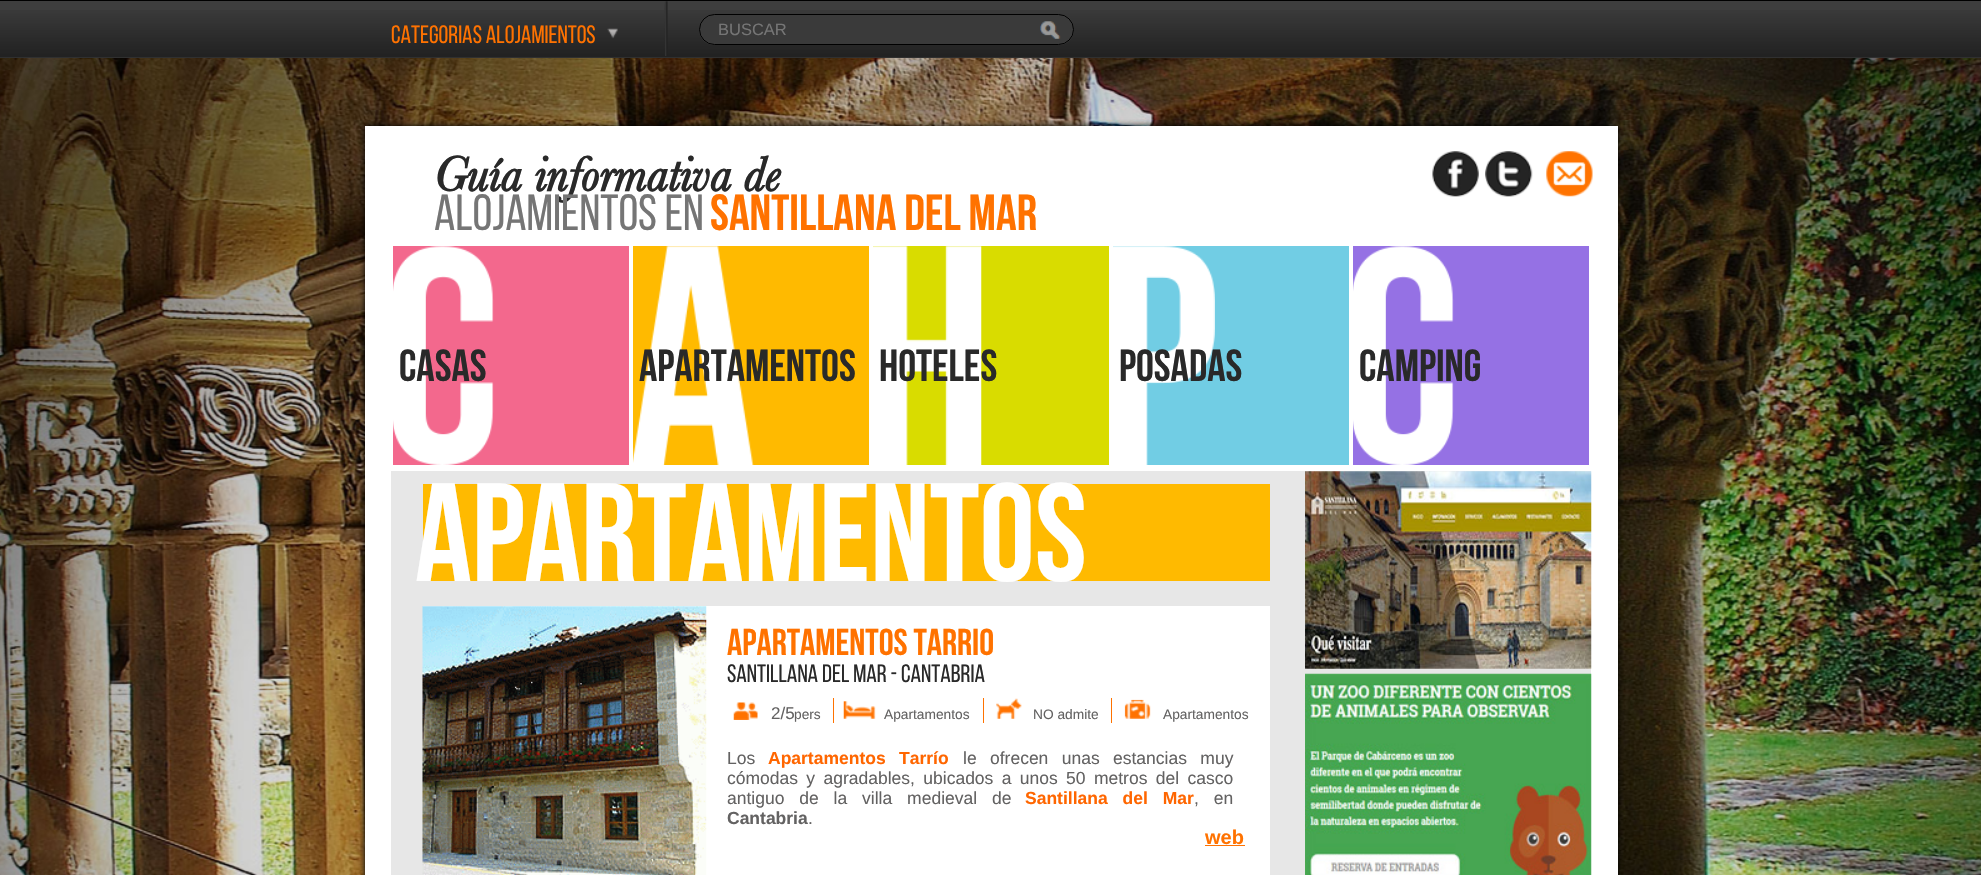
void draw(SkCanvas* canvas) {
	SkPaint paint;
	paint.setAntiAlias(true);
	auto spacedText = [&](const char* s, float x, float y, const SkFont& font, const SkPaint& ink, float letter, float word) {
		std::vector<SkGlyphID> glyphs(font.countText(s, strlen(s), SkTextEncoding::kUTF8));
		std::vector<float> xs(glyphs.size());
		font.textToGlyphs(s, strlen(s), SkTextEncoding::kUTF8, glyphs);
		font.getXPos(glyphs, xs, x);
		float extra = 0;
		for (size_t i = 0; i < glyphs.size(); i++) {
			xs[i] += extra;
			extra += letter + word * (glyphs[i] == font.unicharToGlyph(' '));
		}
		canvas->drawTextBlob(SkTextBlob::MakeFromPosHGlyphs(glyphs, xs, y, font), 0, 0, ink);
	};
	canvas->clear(0xffffffff);
	canvas->drawImageRect(SkImages::DeferredFromEncodedData(SkData::MakeFromFileName("img1.png")), SkRect::MakeXYWH(0, 58, 1981, 817), SkSamplingOptions());
	paint.setColor(0xff000000);
	canvas->drawRect(SkRect::MakeXYWH(0, 0, 1981, 1), paint);
	paint.setColor(0xff3e3e3e);
	canvas->drawRect(SkRect::MakeXYWH(0, 1, 1981, 57), paint);
	canvas->drawImageRect(SkImages::DeferredFromEncodedData(SkData::MakeFromFileName("img2.png")), SkRect::MakeXYWH(0, 10, 1981, 48), SkSamplingOptions());
	canvas->drawImageRect(SkImages::DeferredFromEncodedData(SkData::MakeFromFileName("img3.png")), SkRect::MakeXYWH(664, 1, 4, 55), SkSamplingOptions());
	SkFont f1(fontMgr->matchFamilyStyle("Bebas Neue", SkFontStyle::Normal()), 25);
	f1.setSubpixel(true);
	paint.setColor(0xffff7200);
	canvas->drawString("Categorias alojamientos", 391, 43, f1, paint);
	canvas->drawImageRect(SkImages::DeferredFromEncodedData(SkData::MakeFromFileName("img4.png")), SkRect::MakeXYWH(607, 28, 11, 11), SkSamplingOptions());
	paint.setColor(0xff3a3a3a);
	canvas->drawRoundRect(SkRect::MakeXYWH(699, 14, 375, 31), 15.5, 15.5, paint);
	canvas->drawImageRect(SkImages::DeferredFromEncodedData(SkData::MakeFromFileName("img5.png")), SkRect::MakeXYWH(1040, 21, 21, 18), SkSamplingOptions());
	paint.setStroke(true);
	paint.setStrokeWidth(1);
	paint.setColor(0xff000000);
	canvas->drawRoundRect(SkRect::MakeXYWH(699.5, 14.5, 374, 30), 15, 15, paint);
	SkFont f2(fontMgr->matchFamilyStyle("Liberation Sans", SkFontStyle::Normal()), 16.5);
	f2.setSubpixel(true);
	paint.setStroke(false);
	paint.setColor(0xff757575);
	canvas->drawString("BUSCAR", 718, 35, f2, paint);
	paint.setColor(0xff000000);
	paint.setMaskFilter(SkMaskFilter::MakeBlur(kNormal_SkBlurStyle, 3));
	canvas->drawRect(SkRect::MakeXYWH(365, 126, 1253, 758), paint);
	paint.setMaskFilter(nullptr);
	paint.setColor(0xffffffff);
	canvas->drawRect(SkRect::MakeXYWH(365, 126, 1253, 749), paint);
	SkFont f3(fontMgr->matchFamilyStyle("Baskerville", SkFontStyle::BoldItalic()), 50.75);
	f3.setSubpixel(true);
	paint.setColor(0xff292929);
	canvas->drawString("Guía informativa de", 434, 191, f3, paint);
	SkFont f4(fontMgr->matchFamilyStyle("Bebas Neue", SkFontStyle::Normal()), 50.75);
	f4.setSubpixel(true);
	paint.setColor(0xff757575);
	canvas->drawString("alojamientos en", 434, 230, f4, paint);
	SkFont f5(fontMgr->matchFamilyStyle("Bebas Neue", SkFontStyle::Bold()), 50.75);
	f5.setSubpixel(true);
	paint.setColor(0xffff7200);
	canvas->drawString("Santillana del Mar", 710, 230, f5, paint);
	canvas->drawImageRect(SkImages::DeferredFromEncodedData(SkData::MakeFromFileName("img6.png")), SkRect::MakeXYWH(1432, 151, 47, 46), SkSamplingOptions());
	canvas->drawImageRect(SkImages::DeferredFromEncodedData(SkData::MakeFromFileName("img7.png")), SkRect::MakeXYWH(1485, 151, 48, 46), SkSamplingOptions());
	canvas->drawImageRect(SkImages::DeferredFromEncodedData(SkData::MakeFromFileName("img8.png")), SkRect::MakeXYWH(1546, 151, 47, 46), SkSamplingOptions());
	paint.setColor(0xfff3688d);
	canvas->drawRect(SkRect::MakeXYWH(393, 246, 236, 219), paint);
	canvas->drawImageRect(SkImages::DeferredFromEncodedData(SkData::MakeFromFileName("img9.png")), SkRect::MakeXYWH(393, 246, 101, 219), SkSamplingOptions());
	SkFont f6(fontMgr->matchFamilyStyle("Bebas Neue", SkFontStyle::Bold()), 45);
	f6.setSubpixel(true);
	paint.setColor(0xff292929);
	canvas->drawString("casas", 399, 381, f6, paint);
	paint.setColor(0xffffba00);
	canvas->drawRect(SkRect::MakeXYWH(633, 246, 236, 219), paint);
	canvas->drawImageRect(SkImages::DeferredFromEncodedData(SkData::MakeFromFileName("img10.png")), SkRect::MakeXYWH(633, 246, 121, 219), SkSamplingOptions());
	paint.setColor(0xff292929);
	canvas->drawString("apartamentos", 639, 381, f6, paint);
	paint.setColor(0xffd9dc00);
	canvas->drawRect(SkRect::MakeXYWH(873, 246, 236, 219), paint);
	canvas->drawImageRect(SkImages::DeferredFromEncodedData(SkData::MakeFromFileName("img11.png")), SkRect::MakeXYWH(873, 246, 109, 219), SkSamplingOptions());
	paint.setColor(0xff292929);
	canvas->drawString("hoteles", 879, 381, f6, paint);
	paint.setColor(0xff71cde4);
	canvas->drawRect(SkRect::MakeXYWH(1113, 246, 236, 219), paint);
	canvas->drawImageRect(SkImages::DeferredFromEncodedData(SkData::MakeFromFileName("img12.png")), SkRect::MakeXYWH(1113, 246, 102, 219), SkSamplingOptions());
	paint.setColor(0xff292929);
	canvas->drawString("posadas", 1119, 381, f6, paint);
	paint.setColor(0xff9571e4);
	canvas->drawRect(SkRect::MakeXYWH(1353, 246, 236, 219), paint);
	canvas->drawImageRect(SkImages::DeferredFromEncodedData(SkData::MakeFromFileName("img13.png")), SkRect::MakeXYWH(1353, 246, 101, 219), SkSamplingOptions());
	paint.setColor(0xff292929);
	canvas->drawString("camping", 1359, 381, f6, paint);
	paint.setColor(0xffe7e7e7);
	canvas->drawRect(SkRect::MakeXYWH(391, 471, 1200, 404), paint);
	paint.setColor(0xffffba00);
	canvas->drawRect(SkRect::MakeXYWH(423, 484, 847, 97), paint);
	SkFont f7(fontMgr->matchFamilyStyle("Bebas Neue", SkFontStyle::Bold()), 139.5);
	f7.setSubpixel(true);
	paint.setColor(0xffffffff);
	canvas->drawString("Apartamentos", 415, 581, f7, paint);
	canvas->drawRect(SkRect::MakeXYWH(423, 606, 847, 269), paint);
	canvas->drawImageRect(SkImages::DeferredFromEncodedData(SkData::MakeFromFileName("img14.png")), SkRect::MakeXYWH(422, 606, 285, 269), SkSamplingOptions());
	SkFont f8(fontMgr->matchFamilyStyle("Bebas Neue", SkFontStyle::Bold()), 37.5);
	f8.setSubpixel(true);
	paint.setColor(0xffff7200);
	canvas->drawString("Apartamentos Tarrio", 727, 655, f8, paint);
	paint.setColor(0xff292929);
	canvas->drawString("Santillana del Mar - Cantabria", 727, 682, f1, paint);
	canvas->drawImageRect(SkImages::DeferredFromEncodedData(SkData::MakeFromFileName("img15.png")), SkRect::MakeXYWH(733, 702, 25, 18), SkSamplingOptions());
	SkFont f9(fontMgr->matchFamilyStyle("Liberation Sans", SkFontStyle::Normal()), 17);
	f9.setSubpixel(true);
	paint.setColor(0xff636262);
	canvas->drawString("2/5", 771, 719, f9, paint);
	SkFont f10(fontMgr->matchFamilyStyle("Liberation Sans", SkFontStyle::Normal()), 13.75);
	f10.setSubpixel(true);
	canvas->drawString("pers", 794, 719, f10, paint);
	paint.setColor(0xffff7200);
	canvas->drawRect(SkRect::MakeXYWH(833, 698, 1, 25), paint);
	canvas->drawImageRect(SkImages::DeferredFromEncodedData(SkData::MakeFromFileName("img16.png")), SkRect::MakeXYWH(843, 701, 33, 18), SkSamplingOptions());
	paint.setColor(0xff636262);
	canvas->drawString("Apartamentos", 884, 719, f10, paint);
	paint.setColor(0xffff7200);
	canvas->drawRect(SkRect::MakeXYWH(983, 698, 1, 25), paint);
	canvas->drawImageRect(SkImages::DeferredFromEncodedData(SkData::MakeFromFileName("img17.png")), SkRect::MakeXYWH(996, 698, 26, 21), SkSamplingOptions());
	paint.setColor(0xff636262);
	canvas->drawString("NO admite", 1033, 719, f10, paint);
	paint.setColor(0xffff7200);
	canvas->drawRect(SkRect::MakeXYWH(1111, 698, 1, 25), paint);
	canvas->drawImageRect(SkImages::DeferredFromEncodedData(SkData::MakeFromFileName("img18.png")), SkRect::MakeXYWH(1124, 699, 27, 20), SkSamplingOptions());
	paint.setColor(0xff636262);
	canvas->drawString("Apartamentos", 1163, 719, f10, paint);
	SkFont f11(fontMgr->matchFamilyStyle("Liberation Sans", SkFontStyle::Normal()), 17.5);
	f11.setSubpixel(true);
	canvas->drawString("Los", 727, 764, f11, paint);
	SkFont f12(fontMgr->matchFamilyStyle("Liberation Sans", SkFontStyle::Bold()), 17.5);
	f12.setSubpixel(true);
	paint.setColor(0xffff6600);
	spacedText("Apartamentos Tarrío", 768, 764, f12, paint, 0, 8.5);
	paint.setColor(0xff636262);
	spacedText("le ofrecen unas estancias muy", 963, 764, f11, paint, 0, 8.5);
	spacedText("cómodas y agradables, ubicados a unos 50 metros del casco", 727, 784, f11, paint, 0, 3.5);
	spacedText("antiguo de la villa medieval de", 727, 804, f11, paint, 0, 10);
	paint.setColor(0xffff6600);
	spacedText("Santillana del Mar", 1025, 804, f12, paint, 0, 10);
	paint.setColor(0xff636262);
	spacedText(", en", 1194, 804, f11, paint, 0, 10);
	canvas->drawString("Cantabria", 727, 824, f12, paint);
	canvas->drawString(".", 808, 824, f11, paint);
	SkFont f13(fontMgr->matchFamilyStyle("Liberation Sans", SkFontStyle::Bold()), 20);
	f13.setSubpixel(true);
	paint.setColor(0xffff7200);
	canvas->drawString("web", 1205, 844, f13, paint);
	canvas->drawRect(SkRect::MakeXYWH(1205, 845, 40, 1), paint);
	canvas->drawImageRect(SkImages::DeferredFromEncodedData(SkData::MakeFromFileName("img19.png")), SkRect::MakeXYWH(1305, 471, 287, 198), SkSamplingOptions());
	canvas->drawImageRect(SkImages::DeferredFromEncodedData(SkData::MakeFromFileName("img20.png")), SkRect::MakeXYWH(1305, 673, 287, 202), SkSamplingOptions());
}
